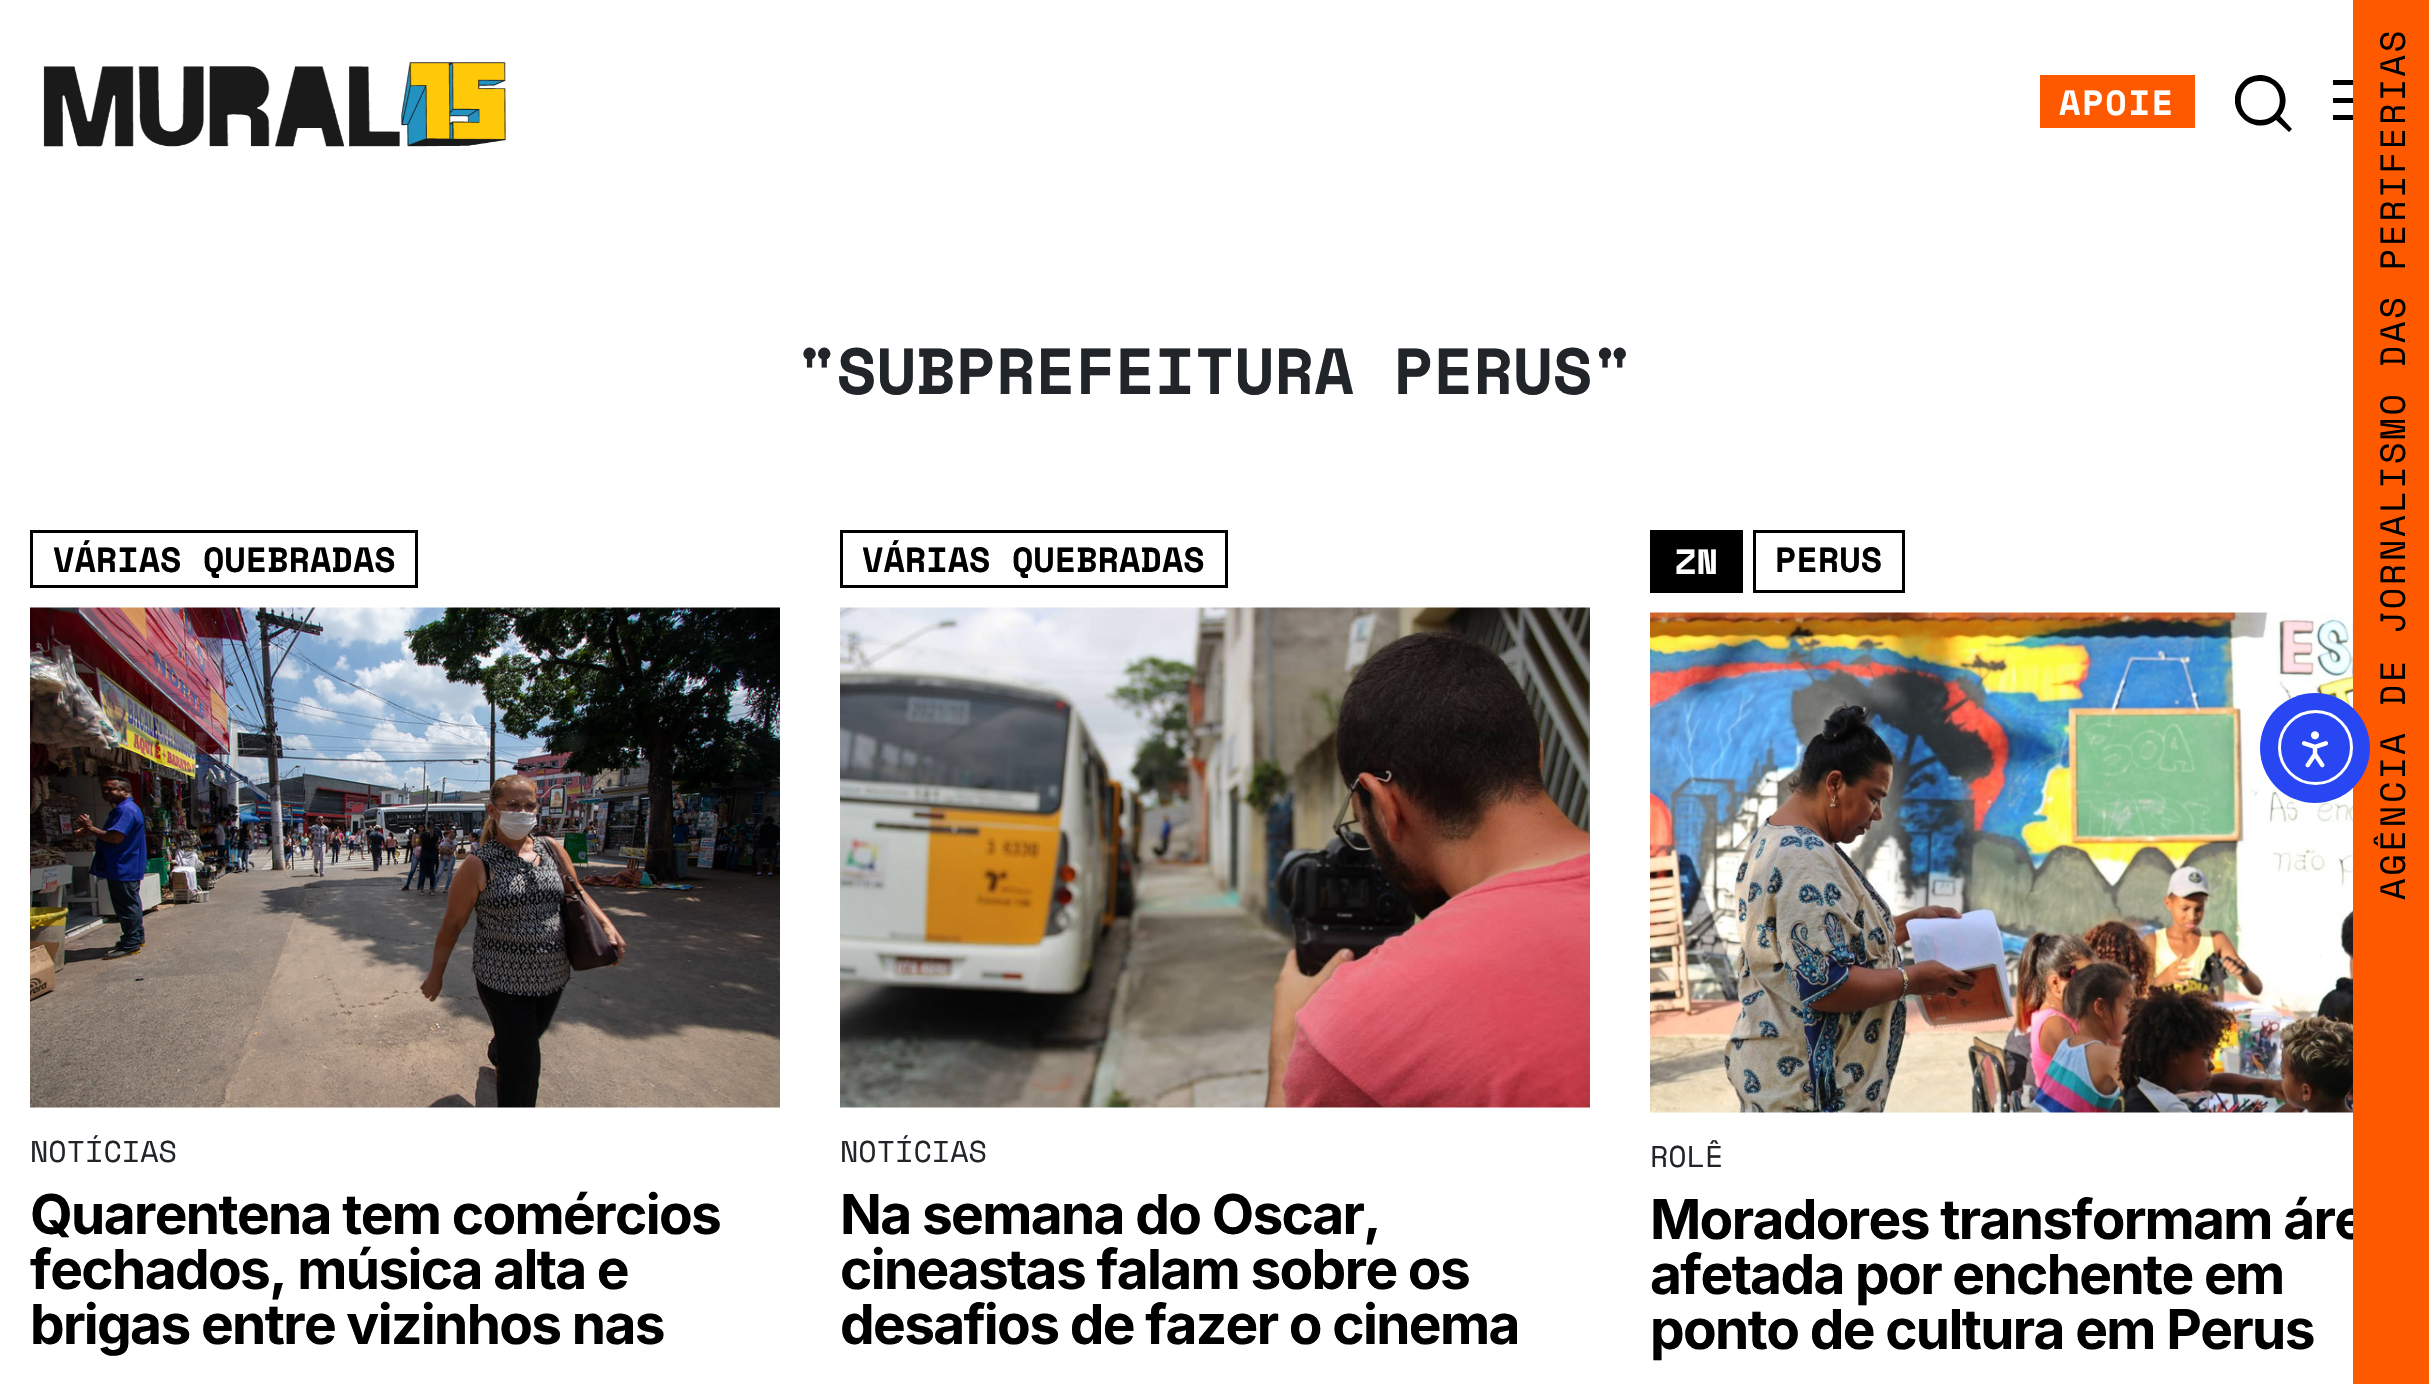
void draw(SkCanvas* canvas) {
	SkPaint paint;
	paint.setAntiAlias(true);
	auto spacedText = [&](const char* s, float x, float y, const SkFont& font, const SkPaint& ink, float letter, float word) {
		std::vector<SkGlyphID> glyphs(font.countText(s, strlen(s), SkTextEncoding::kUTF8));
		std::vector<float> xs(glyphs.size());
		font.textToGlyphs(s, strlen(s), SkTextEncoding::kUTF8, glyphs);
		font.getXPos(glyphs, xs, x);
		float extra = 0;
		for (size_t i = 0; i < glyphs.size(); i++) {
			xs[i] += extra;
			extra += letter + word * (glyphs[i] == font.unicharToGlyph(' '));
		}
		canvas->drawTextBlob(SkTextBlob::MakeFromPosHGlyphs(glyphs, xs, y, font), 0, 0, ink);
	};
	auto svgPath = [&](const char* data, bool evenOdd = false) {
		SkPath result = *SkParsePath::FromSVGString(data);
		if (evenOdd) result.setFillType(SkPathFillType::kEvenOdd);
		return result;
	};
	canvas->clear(0xffffffff);
	canvas->drawImageRect(SkImages::DeferredFromEncodedData(SkData::MakeFromFileName("img1.png")), SkRect::MakeXYWH(43, 62, 463, 85), SkSamplingOptions());
	paint.setColor(0xffff5900);
	canvas->drawRect(SkRect::MakeXYWH(2040, 75, 155, 53), paint);
	SkFont f1(fontMgr->matchFamilyStyle("Space Mono", SkFontStyle::Bold()), 35);
	f1.setSubpixel(true);
	paint.setColor(0xffffffff);
	spacedText("APOIE", 2059, 115, f1, paint, 1.75, 0);
	canvas->save();
	canvas->clipRect(SkRect::MakeXYWH(2235, 75, 58, 58));
	paint.setColor(0xff000000);
	canvas->drawPath(svgPath("M2292 129L2280 116C2290 104 2286 86 2273 79C2266 74 2258 74 2250 77C2245 79 2241 83 2238 88C2225 112 2255 137 2276 120L2289 132ZM2260 120C2235 120 2234 82 2259 81C2286 79 2287 120 2260 120Z"), paint);
	canvas->restore();
	canvas->drawRect(SkRect::MakeXYWH(2333, 80, 20, 5), paint);
	canvas->drawRect(SkRect::MakeXYWH(2333, 98, 20, 5), paint);
	canvas->drawRect(SkRect::MakeXYWH(2333, 115, 20, 5), paint);
	SkFont f2(fontMgr->matchFamilyStyle("Inter", SkFontStyle::Bold()), 55);
	f2.setSubpixel(true);
	spacedText("Moradores transformam áre", 1650, 1239, f2, paint, -1.65, 0);
	paint.setColor(0xffff5900);
	canvas->drawRect(SkRect::MakeXYWH(2353, 0, 76, 1384), paint);
	SkFont f3(fontMgr->matchFamilyStyle("Space Mono", SkFontStyle::Normal()), 35);
	f3.setSubpixel(true);
	paint.setColor(0xff000000);
	canvas->save();
	canvas->rotate(-90, 2405, 900);
	spacedText("AGÊNCIA DE JORNALISMO DAS PERIFERIAS", 2405, 900, f3, paint, 2.8, 0);
	canvas->restore();
	SkFont f4(fontMgr->matchFamilyStyle("Space Mono", SkFontStyle::Bold()), 65);
	f4.setSubpixel(true);
	paint.setColor(0xff212529);
	canvas->drawString("\"SUBPREFEITURA PERUS\"", 797, 394, f4, paint);
	paint.setStroke(true);
	paint.setStrokeWidth(3);
	paint.setColor(0xff000000);
	canvas->drawRect(SkRect::MakeXYWH(31.5, 531.5, 385, 55), paint);
	paint.setStroke(false);
	canvas->drawString("VÁRIAS QUEBRADAS", 53, 572, f1, paint);
	canvas->drawImageRect(SkImages::DeferredFromEncodedData(SkData::MakeFromFileName("img2.png")), SkRect::MakeXYWH(30, 607, 750, 501), SkSamplingOptions());
	SkFont f5(fontMgr->matchFamilyStyle("Space Mono", SkFontStyle::Normal()), 30);
	f5.setSubpixel(true);
	paint.setColor(0xff212529);
	canvas->drawString("NOTÍCIAS", 30, 1162, f5, paint);
	paint.setColor(0xff000000);
	spacedText("Quarentena tem comércios", 30, 1234, f2, paint, -1.65, 0);
	spacedText("fechados, música alta e", 30, 1289, f2, paint, -1.65, 0);
	spacedText("brigas entre vizinhos nas", 30, 1344, f2, paint, -1.65, 0);
	paint.setStroke(true);
	canvas->drawRect(SkRect::MakeXYWH(841.5, 531.5, 385, 55), paint);
	paint.setStroke(false);
	canvas->drawString("VÁRIAS QUEBRADAS", 862, 572, f1, paint);
	canvas->drawImageRect(SkImages::DeferredFromEncodedData(SkData::MakeFromFileName("img3.png")), SkRect::MakeXYWH(840, 607, 750, 501), SkSamplingOptions());
	paint.setColor(0xff212529);
	canvas->drawString("NOTÍCIAS", 840, 1162, f5, paint);
	paint.setColor(0xff000000);
	spacedText("Na semana do Oscar,", 840, 1234, f2, paint, -1.65, 0);
	spacedText("cineastas falam sobre os", 840, 1289, f2, paint, -1.65, 0);
	spacedText("desafios de fazer o cinema", 840, 1344, f2, paint, -1.65, 0);
	canvas->drawRect(SkRect::MakeXYWH(1650, 530, 93, 63), paint);
	paint.setColor(0xffffffff);
	canvas->drawString("ZN", 1675, 574, f1, paint);
	paint.setStroke(true);
	paint.setColor(0xff000000);
	canvas->drawRect(SkRect::MakeXYWH(1754.5, 531.5, 149, 60), paint);
	paint.setStroke(false);
	canvas->drawString("PERUS", 1775, 572, f1, paint);
	canvas->drawImageRect(SkImages::DeferredFromEncodedData(SkData::MakeFromFileName("img4.png")), SkRect::MakeXYWH(1650, 612, 703, 501), SkSamplingOptions());
	paint.setColor(0xff212529);
	canvas->drawString("ROLÊ", 1650, 1167, f5, paint);
	paint.setColor(0xff000000);
	spacedText("afetada por enchente em", 1650, 1294, f2, paint, -1.65, 0);
	spacedText("ponto de cultura em Perus", 1650, 1349, f2, paint, -1.65, 0);
	paint.setColor(0xff2847f3);
	canvas->drawCircle(2315, 748, 55, paint);
	paint.setStroke(true);
	paint.setColor(0xffffffff);
	canvas->drawCircle(2315.5, 747.5, 36, paint);
	canvas->drawImageRect(SkImages::DeferredFromEncodedData(SkData::MakeFromFileName("img5.png")), SkRect::MakeXYWH(2301, 731, 28, 37), SkSamplingOptions());
}
